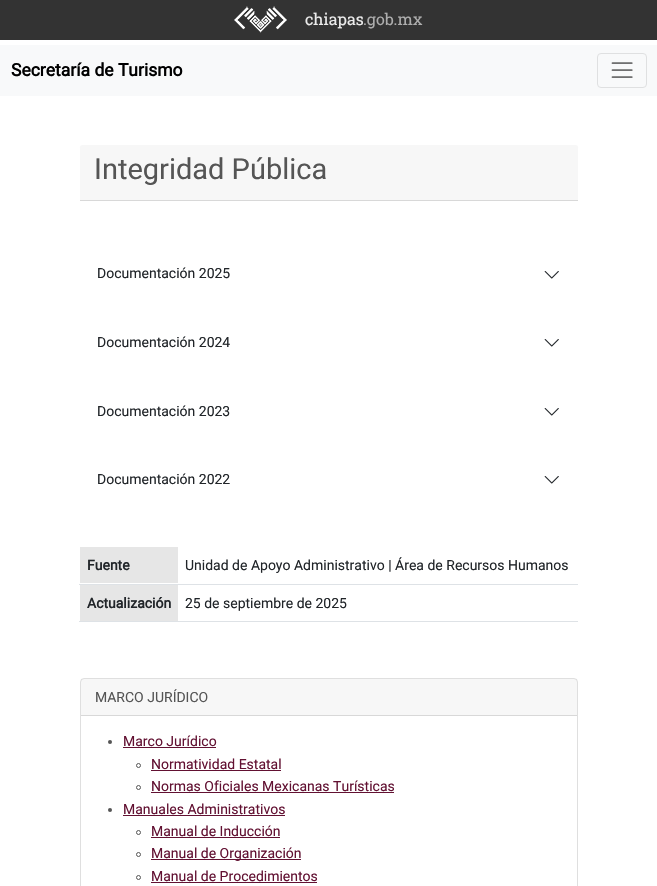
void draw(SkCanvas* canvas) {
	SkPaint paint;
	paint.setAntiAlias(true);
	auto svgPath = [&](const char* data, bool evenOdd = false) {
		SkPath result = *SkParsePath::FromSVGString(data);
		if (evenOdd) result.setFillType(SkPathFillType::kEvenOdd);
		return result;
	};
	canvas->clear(0xffffffff);
	paint.setColor(0xff333333);
	canvas->drawRect(SkRect::MakeXYWH(0, 0, 657, 40), paint);
	canvas->drawImageRect(SkImages::DeferredFromEncodedData(SkData::MakeFromFileName("img1.png")), SkRect::MakeXYWH(234, 6, 53, 27), SkSamplingOptions());
	SkFont f1(fontMgr->matchFamilyStyle("Roboto Slab", SkFontStyle::Normal()), 16);
	f1.setSubpixel(true);
	paint.setColor(0xffebebeb);
	canvas->drawString("chiapas", 305, 25, f1, paint);
	paint.setColor(0xffadadad);
	canvas->drawString(".gob.mx", 363, 25, f1, paint);
	paint.setColor(0xfff8f9fa);
	canvas->drawRect(SkRect::MakeXYWH(0, 45, 657, 51), paint);
	SkFont f2(fontMgr->matchFamilyStyle("Roboto", SkFontStyle::Bold()), 17.5);
	f2.setSubpixel(true);
	paint.setColor(0xff000000);
	canvas->drawString("Secretaría de Turismo", 11, 76, f2, paint);
	paint.setStroke(true);
	paint.setStrokeWidth(1);
	paint.setColor(0xffdfe0e1);
	canvas->drawRoundRect(SkRect::MakeXYWH(597.5, 53.5, 49, 34), 3.5, 3.5, paint);
	canvas->drawImageRect(SkImages::DeferredFromEncodedData(SkData::MakeFromFileName("img2.png")), SkRect::MakeXYWH(611, 62, 22, 16), SkSamplingOptions());
	paint.setStroke(false);
	paint.setColor(0xfff7f7f7);
	canvas->drawPath(svgPath("M82.5 145H575.5C577 145 578 146 578 147.5V201H80V147.5C80 146 81 145 82.5 145Z"), paint);
	paint.setColor(0xffd8d8d8);
	canvas->drawRect(SkRect::MakeXYWH(80, 200, 498, 1), paint);
	SkFont f3(fontMgr->matchFamilyStyle("Roboto", SkFontStyle::Normal()), 29);
	f3.setSubpixel(true);
	paint.setColor(0xff555555);
	canvas->drawString("Integridad Pública", 94, 179, f3, paint);
	SkFont f4(fontMgr->matchFamilyStyle("Roboto", SkFontStyle::Normal()), 14);
	f4.setSubpixel(true);
	paint.setColor(0xff212529);
	canvas->drawString("Documentación 2025", 97, 278, f4, paint);
	canvas->drawImageRect(SkImages::DeferredFromEncodedData(SkData::MakeFromFileName("img3.png")), SkRect::MakeXYWH(544, 271, 15, 8), SkSamplingOptions());
	canvas->drawString("Documentación 2024", 97, 347, f4, paint);
	canvas->drawImageRect(SkImages::DeferredFromEncodedData(SkData::MakeFromFileName("img3.png")), SkRect::MakeXYWH(544, 339, 15, 8), SkSamplingOptions());
	canvas->drawString("Documentación 2023", 97, 416, f4, paint);
	canvas->drawImageRect(SkImages::DeferredFromEncodedData(SkData::MakeFromFileName("img3.png")), SkRect::MakeXYWH(544, 408, 15, 8), SkSamplingOptions());
	canvas->drawString("Documentación 2022", 97, 484, f4, paint);
	canvas->drawImageRect(SkImages::DeferredFromEncodedData(SkData::MakeFromFileName("img3.png")), SkRect::MakeXYWH(544, 476, 15, 8), SkSamplingOptions());
	paint.setColor(0xffe6e6e6);
	canvas->drawRect(SkRect::MakeXYWH(80, 547, 98, 36), paint);
	SkFont f5(fontMgr->matchFamilyStyle("Roboto", SkFontStyle::Bold()), 14);
	f5.setSubpixel(true);
	paint.setColor(0xff212529);
	canvas->drawString("Fuente", 87, 570, f5, paint);
	paint.setColor(0xffdee2e6);
	canvas->drawRect(SkRect::MakeXYWH(79, 584, 499, 1), paint);
	paint.setColor(0xff212529);
	canvas->drawString("Unidad de Apoyo Administrativo | Área de Recursos Humanos", 185, 570, f4, paint);
	paint.setColor(0xffe6e6e6);
	canvas->drawRect(SkRect::MakeXYWH(80, 585, 98, 36), paint);
	paint.setColor(0xff212529);
	canvas->drawString("Actualización", 87, 608, f5, paint);
	paint.setColor(0xffdee2e6);
	canvas->drawRect(SkRect::MakeXYWH(79, 621, 499, 1), paint);
	paint.setColor(0xff212529);
	canvas->drawString("25 de septiembre de 2025", 185, 608, f4, paint);
	paint.setStroke(true);
	paint.setColor(0xffdfdfdf);
	canvas->drawRoundRect(SkRect::MakeXYWH(80.5, 678.5, 497, 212), 3.5, 3.5, paint);
	paint.setStroke(false);
	paint.setColor(0x08000000);
	canvas->drawRect(SkRect::MakeXYWH(81, 679, 496, 36), paint);
	paint.setColor(0xffd8d8d8);
	canvas->drawRect(SkRect::MakeXYWH(81, 715, 496, 1), paint);
	paint.setColor(0xff555555);
	canvas->drawString("MARCO JURÍDICO", 95, 702, f4, paint);
	canvas->drawCircle(110, 742, 2, paint);
	paint.setColor(0xff621132);
	canvas->drawString("Marco Jurídico", 123, 746, f4, paint);
	canvas->drawRect(SkRect::MakeXYWH(123, 747, 93, 1), paint);
	paint.setStroke(true);
	paint.setColor(0xff555555);
	canvas->drawCircle(138.5, 765.5, 2, paint);
	paint.setStroke(false);
	paint.setColor(0xff621132);
	canvas->drawString("Normatividad Estatal", 151, 769, f4, paint);
	canvas->drawRect(SkRect::MakeXYWH(151, 770, 130, 1), paint);
	paint.setStroke(true);
	paint.setColor(0xff555555);
	canvas->drawCircle(138.5, 787.5, 2, paint);
	paint.setStroke(false);
	paint.setColor(0xff621132);
	canvas->drawString("Normas Oficiales Mexicanas Turísticas", 151, 791, f4, paint);
	canvas->drawRect(SkRect::MakeXYWH(151, 792, 243, 1), paint);
	paint.setColor(0xff555555);
	canvas->drawCircle(110, 810, 2, paint);
	paint.setColor(0xff621132);
	canvas->drawString("Manuales Administrativos", 123, 814, f4, paint);
	canvas->drawRect(SkRect::MakeXYWH(123, 815, 162, 1), paint);
	paint.setStroke(true);
	paint.setColor(0xff555555);
	canvas->drawCircle(138.5, 832.5, 2, paint);
	paint.setStroke(false);
	paint.setColor(0xff621132);
	canvas->drawString("Manual de Inducción", 151, 836, f4, paint);
	canvas->drawRect(SkRect::MakeXYWH(151, 837, 129, 1), paint);
	paint.setStroke(true);
	paint.setColor(0xff555555);
	canvas->drawCircle(138.5, 854.5, 2, paint);
	paint.setStroke(false);
	paint.setColor(0xff621132);
	canvas->drawRect(SkRect::MakeXYWH(151, 859, 150, 1), paint);
	canvas->drawString("Manual de Organización", 151, 858, f4, paint);
	paint.setStroke(true);
	paint.setColor(0xff555555);
	canvas->drawCircle(138.5, 877.5, 2, paint);
	paint.setStroke(false);
	paint.setColor(0xff621132);
	canvas->drawString("Manual de Procedimientos", 151, 881, f4, paint);
	canvas->drawRect(SkRect::MakeXYWH(151, 882, 166, 1), paint);
}
